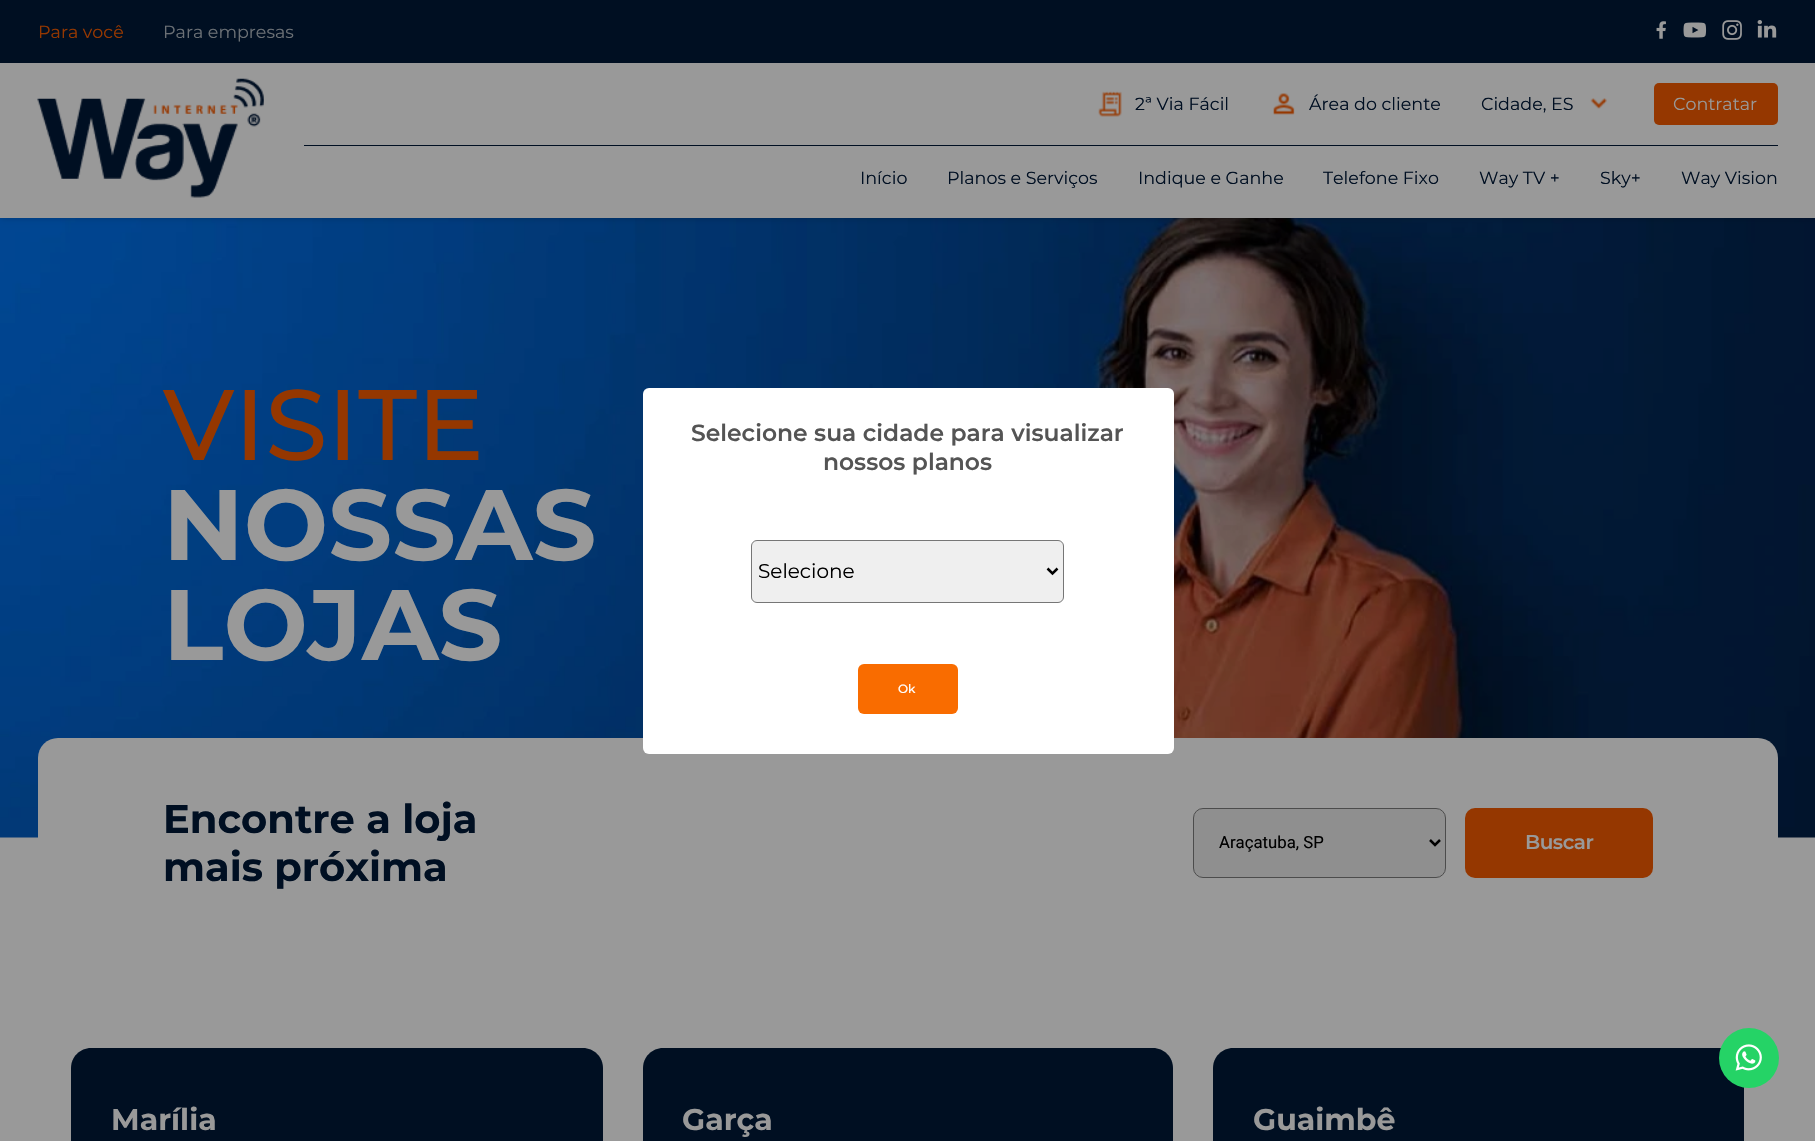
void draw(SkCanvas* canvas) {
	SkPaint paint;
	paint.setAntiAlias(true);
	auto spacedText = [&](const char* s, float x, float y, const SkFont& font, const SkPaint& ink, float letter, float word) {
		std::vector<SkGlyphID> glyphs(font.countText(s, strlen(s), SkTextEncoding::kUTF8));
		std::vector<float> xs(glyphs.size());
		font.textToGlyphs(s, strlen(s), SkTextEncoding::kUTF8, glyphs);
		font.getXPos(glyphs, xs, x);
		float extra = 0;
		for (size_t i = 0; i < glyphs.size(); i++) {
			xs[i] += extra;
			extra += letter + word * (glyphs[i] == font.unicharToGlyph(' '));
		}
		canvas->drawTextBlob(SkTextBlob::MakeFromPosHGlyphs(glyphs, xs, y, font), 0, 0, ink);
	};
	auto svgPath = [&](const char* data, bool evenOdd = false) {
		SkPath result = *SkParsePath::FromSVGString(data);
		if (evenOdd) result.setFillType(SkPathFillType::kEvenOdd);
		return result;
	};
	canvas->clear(0xff999999);
	canvas->drawImageRect(SkImages::DeferredFromEncodedData(SkData::MakeFromFileName("img10.png")), SkRect::MakeXYWH(0, 218, 1815, 620), SkSamplingOptions());
	paint.setColor(0x26000000);
	paint.setMaskFilter(SkMaskFilter::MakeBlur(kNormal_SkBlurStyle, 3));
	canvas->drawRect(SkRect::MakeXYWH(1, 1, 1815, 218), paint);
	paint.setMaskFilter(nullptr);
	paint.setColor(0xff000f22);
	canvas->drawRect(SkRect::MakeXYWH(0, 0, 1815, 63), paint);
	SkFont f1(fontMgr->matchFamilyStyle("Montserrat", SkFontStyle::Normal()), 17.5);
	f1.setSubpixel(true);
	paint.setColor(0xff953700);
	canvas->drawString("Para você", 38, 38, f1, paint);
	paint.setColor(0xff6b7075);
	canvas->drawString("Para empresas", 163, 38, f1, paint);
	canvas->drawImageRect(SkImages::DeferredFromEncodedData(SkData::MakeFromFileName("img1.png")), SkRect::MakeXYWH(1656, 21, 10, 18), SkSamplingOptions());
	canvas->drawImageRect(SkImages::DeferredFromEncodedData(SkData::MakeFromFileName("img2.png")), SkRect::MakeXYWH(1683, 22, 24, 16), SkSamplingOptions());
	canvas->drawImageRect(SkImages::DeferredFromEncodedData(SkData::MakeFromFileName("img3.png")), SkRect::MakeXYWH(1722, 20, 20, 20), SkSamplingOptions());
	canvas->drawImageRect(SkImages::DeferredFromEncodedData(SkData::MakeFromFileName("img4.png")), SkRect::MakeXYWH(1757, 20, 20, 18), SkSamplingOptions());
	paint.setColor(0xff999999);
	canvas->drawRect(SkRect::MakeXYWH(0, 63, 1815, 155), paint);
	canvas->drawImageRect(SkImages::DeferredFromEncodedData(SkData::MakeFromFileName("img5.png")), SkRect::MakeXYWH(37, 78, 227, 120), SkSamplingOptions());
	paint.setColor(0xff000f22);
	canvas->drawRect(SkRect::MakeXYWH(304, 145, 1474, 1), paint);
	canvas->drawImageRect(SkImages::DeferredFromEncodedData(SkData::MakeFromFileName("img6.png")), SkRect::MakeXYWH(1098, 91, 24, 26), SkSamplingOptions());
	canvas->drawString("2ª Via Fácil", 1135, 110, f1, paint);
	canvas->drawImageRect(SkImages::DeferredFromEncodedData(SkData::MakeFromFileName("img7.png")), SkRect::MakeXYWH(1273, 93, 22, 22), SkSamplingOptions());
	canvas->drawString("Área do cliente", 1309, 110, f1, paint);
	canvas->drawString("Cidade, ES", 1481, 110, f1, paint);
	canvas->drawImageRect(SkImages::DeferredFromEncodedData(SkData::MakeFromFileName("img8.png")), SkRect::MakeXYWH(1590, 98, 17, 11), SkSamplingOptions());
	paint.setColor(0xff953700);
	canvas->drawRoundRect(SkRect::MakeXYWH(1654, 83, 124, 42), 5, 5, paint);
	paint.setColor(0xff999999);
	canvas->drawString("Contratar", 1673, 110, f1, paint);
	paint.setColor(0xff000f22);
	canvas->drawString("Início", 860, 184, f1, paint);
	canvas->drawString("Planos e Serviços", 947, 184, f1, paint);
	canvas->drawString("Indique e Ganhe", 1138, 184, f1, paint);
	canvas->drawString("Telefone Fixo", 1323, 184, f1, paint);
	canvas->drawString("Way TV +", 1479, 184, f1, paint);
	canvas->drawString("Sky+", 1600, 184, f1, paint);
	canvas->drawString("Way Vision", 1681, 184, f1, paint);
	canvas->drawPath(svgPath("M1233 1048H1724C1735 1048 1744 1057 1744 1068V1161H1213V1068C1213 1057 1222 1048 1233 1048Z"), paint);
	paint.setColor(0xff25d366);
	canvas->drawCircle(1749, 1058, 30, paint);
	canvas->drawImageRect(SkImages::DeferredFromEncodedData(SkData::MakeFromFileName("img9.png")), SkRect::MakeXYWH(1735, 1044, 27, 27), SkSamplingOptions());
	SkFont f2(fontMgr->matchFamilyStyle("Montserrat", SkFontStyle(500, SkFontStyle::kNormal_Width, SkFontStyle::kUpright_Slant)), 100);
	f2.setSubpixel(true);
	paint.setColor(0xff953700);
	canvas->drawString("VISITE", 163, 460, f2, paint);
	SkFont f3(fontMgr->matchFamilyStyle("Montserrat", SkFontStyle::Bold()), 100);
	f3.setSubpixel(true);
	paint.setColor(0xff999999);
	canvas->drawString("NOSSAS", 163, 560, f3, paint);
	canvas->drawString("LOJAS", 163, 660, f3, paint);
	canvas->drawRoundRect(SkRect::MakeXYWH(38, 738, 1740, 210), 20, 20, paint);
	SkFont f4(fontMgr->matchFamilyStyle("Montserrat", SkFontStyle::Bold()), 40);
	f4.setSubpixel(true);
	paint.setColor(0xff000f22);
	canvas->drawString("Encontre a loja", 163, 833, f4, paint);
	canvas->drawString("mais próxima", 163, 881, f4, paint);
	paint.setColor(0xff8f8f8f);
	canvas->drawRoundRect(SkRect::MakeXYWH(1193.5, 808.5, 252, 69), 9.5, 9.5, paint);
	paint.setStroke(true);
	paint.setStrokeWidth(1);
	paint.setColor(0xff4c4c4c);
	canvas->drawRoundRect(SkRect::MakeXYWH(1193.5, 808.5, 252, 69), 9.5, 9.5, paint);
	paint.setStrokeWidth(2.5);
	paint.setColor(0xff000000);
	canvas->drawPath(svgPath("M1430 840L1435 845L1440 840"), paint);
	SkFont f5(fontMgr->matchFamilyStyle("Roboto", SkFontStyle::Normal()), 16.75);
	f5.setSubpixel(true);
	paint.setStroke(false);
	canvas->drawString("Araçatuba, SP", 1219, 848, f5, paint);
	paint.setColor(0xff953700);
	canvas->drawRoundRect(SkRect::MakeXYWH(1465, 808, 188, 70), 10, 10, paint);
	SkFont f6(fontMgr->matchFamilyStyle("Montserrat", SkFontStyle(600, SkFontStyle::kNormal_Width, SkFontStyle::kUpright_Slant)), 20);
	f6.setSubpixel(true);
	paint.setColor(0xff999999);
	spacedText("Buscar", 1525, 849, f6, paint, -0.5, 0);
	paint.setColor(0xff000f22);
	canvas->drawPath(svgPath("M91 1048H583C594 1048 603 1057 603 1068V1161H71V1068C71 1057 80 1048 91 1048Z"), paint);
	SkFont f7(fontMgr->matchFamilyStyle("Montserrat", SkFontStyle::Bold()), 30);
	f7.setSubpixel(true);
	paint.setColor(0xff999999);
	canvas->drawString("Marília", 111, 1130, f7, paint);
	paint.setColor(0xff000f22);
	canvas->drawPath(svgPath("M663 1048H1153C1164 1048 1173 1057 1173 1068V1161H643V1068C643 1057 652 1048 663 1048Z"), paint);
	paint.setColor(0xff999999);
	canvas->drawString("Garça", 682, 1130, f7, paint);
	canvas->drawString("Guaimbê", 1253, 1130, f7, paint);
	paint.setColor(0xffffffff);
	canvas->drawRoundRect(SkRect::MakeXYWH(643, 388, 531, 366), 6, 6, paint);
	SkFont f8(fontMgr->matchFamilyStyle("Montserrat", SkFontStyle(600, SkFontStyle::kNormal_Width, SkFontStyle::kUpright_Slant)), 23.4);
	f8.setSubpixel(true);
	paint.setColor(0xff545454);
	canvas->drawString("Selecione sua cidade para visualizar", 691, 441, f8, paint);
	canvas->drawString("nossos planos", 823, 470, f8, paint);
	paint.setColor(0xffefefef);
	canvas->drawRoundRect(SkRect::MakeXYWH(751.5, 540.5, 312, 62), 5.5, 5.5, paint);
	paint.setStroke(true);
	paint.setStrokeWidth(1);
	paint.setColor(0xff767676);
	canvas->drawRoundRect(SkRect::MakeXYWH(751.5, 540.5, 312, 62), 5.5, 5.5, paint);
	paint.setStrokeWidth(2.5);
	paint.setColor(0xff000000);
	canvas->drawPath(svgPath("M1047.5 568.5L1052.5 573.5L1057.5 568.5"), paint);
	SkFont f9(fontMgr->matchFamilyStyle("Montserrat", SkFontStyle::Normal()), 20);
	f9.setSubpixel(true);
	paint.setStroke(false);
	canvas->drawString("Selecione", 758, 578, f9, paint);
	paint.setColor(0xfff96c00);
	canvas->drawRoundRect(SkRect::MakeXYWH(858, 664, 100, 50), 6, 6, paint);
	SkFont f10(fontMgr->matchFamilyStyle("Montserrat", SkFontStyle(500, SkFontStyle::kNormal_Width, SkFontStyle::kUpright_Slant)), 12);
	f10.setSubpixel(true);
	paint.setColor(0xffffffff);
	canvas->drawString("Ok", 898, 693, f10, paint);
}
